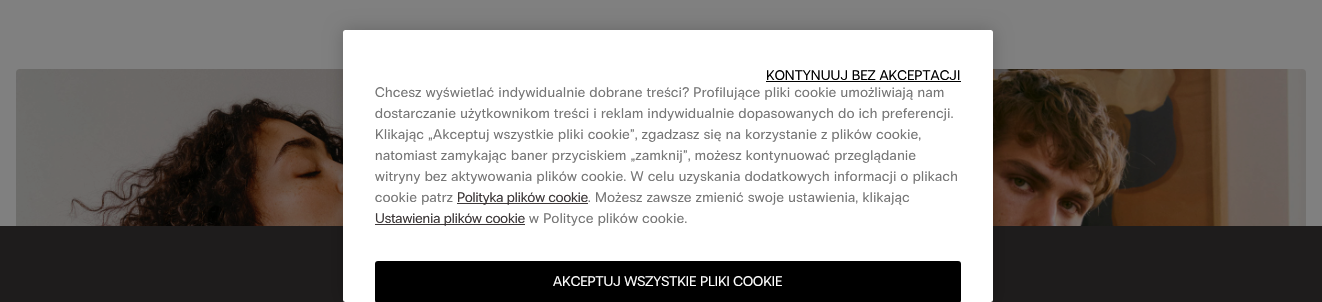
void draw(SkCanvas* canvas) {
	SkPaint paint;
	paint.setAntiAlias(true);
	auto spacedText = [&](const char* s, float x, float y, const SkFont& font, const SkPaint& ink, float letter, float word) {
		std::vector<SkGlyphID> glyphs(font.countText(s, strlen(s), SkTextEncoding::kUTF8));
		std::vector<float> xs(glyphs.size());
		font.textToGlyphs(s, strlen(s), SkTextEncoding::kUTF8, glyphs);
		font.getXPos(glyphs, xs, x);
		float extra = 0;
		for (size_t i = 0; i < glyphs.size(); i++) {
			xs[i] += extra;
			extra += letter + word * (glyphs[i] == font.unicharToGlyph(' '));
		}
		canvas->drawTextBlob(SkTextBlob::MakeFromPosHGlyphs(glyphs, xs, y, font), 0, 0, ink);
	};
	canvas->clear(0xff808080);
	canvas->drawImageRect(SkImages::DeferredFromEncodedData(SkData::MakeFromFileName("img1.png")), SkRect::MakeXYWH(16, 69, 327, 157), SkSamplingOptions());
	canvas->drawImageRect(SkImages::DeferredFromEncodedData(SkData::MakeFromFileName("img2.png")), SkRect::MakeXYWH(993, 69, 313, 157), SkSamplingOptions());
	paint.setColor(0xff1e1c1c);
	canvas->drawRect(SkRect::MakeXYWH(0, 226, 1322, 76), paint);
	paint.setColor(0x33000000);
	paint.setMaskFilter(SkMaskFilter::MakeBlur(kNormal_SkBlurStyle, 9));
	canvas->drawRoundRect(SkRect::MakeXYWH(343, 30, 650, 272), 2.5, 2.5, paint);
	paint.setMaskFilter(nullptr);
	paint.setColor(0xffffffff);
	canvas->drawRoundRect(SkRect::MakeXYWH(343, 30, 650, 272), 2.5, 2.5, paint);
	SkFont f1(fontMgr->matchFamilyStyle("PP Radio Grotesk", SkFontStyle::Normal()), 14);
	f1.setSubpixel(true);
	paint.setColor(0xff000000);
	spacedText("KONTYNUUJ BEZ AKCEPTACJI", 766, 80, f1, paint, 0.1, 0);
	canvas->drawRect(SkRect::MakeXYWH(766, 81, 195, 1), paint);
	paint.setColor(0xff757575);
	spacedText("Chcesz wyświetlać indywidualnie dobrane treści? Profilujące pliki cookie umożliwiają nam", 375, 97, f1, paint, 0.43, 0);
	spacedText("dostarczanie użytkownikom treści i reklam indywidualnie dopasowanych do ich preferencji.", 375, 118, f1, paint, 0.43, 0);
	spacedText("Klikając „Akceptuj wszystkie pliki cookie”, zgadzasz się na korzystanie z plików cookie,", 375, 139, f1, paint, 0.43, 0);
	spacedText("natomiast zamykając baner przyciskiem „zamknij”, możesz kontynuować przeglądanie", 375, 160, f1, paint, 0.43, 0);
	spacedText("witryny bez aktywowania plików cookie. W celu uzyskania dodatkowych informacji o plikach", 375, 181, f1, paint, 0.43, 0);
	spacedText("cookie patrz", 375, 202, f1, paint, 0.43, 0);
	paint.setColor(0xff3c3738);
	canvas->drawRect(SkRect::MakeXYWH(457, 203, 131, 1), paint);
	canvas->drawString("Polityka plików cookie", 457, 202, f1, paint);
	paint.setColor(0xff757575);
	spacedText(". Możesz zawsze zmienić swoje ustawienia, klikając", 588, 202, f1, paint, 0.43, 0);
	paint.setColor(0xff3c3738);
	canvas->drawRect(SkRect::MakeXYWH(375, 224, 150, 1), paint);
	canvas->drawString("Ustawienia plików cookie", 375, 223, f1, paint);
	paint.setColor(0xff757575);
	spacedText("w Polityce plików cookie.", 529, 223, f1, paint, 0.43, 0);
	paint.setColor(0xff000000);
	canvas->drawRoundRect(SkRect::MakeXYWH(375, 261, 586, 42), 3, 3, paint);
	paint.setColor(0xffffffff);
	canvas->drawString("AKCEPTUJ WSZYSTKIE PLIKI COOKIE", 553, 286, f1, paint);
}
